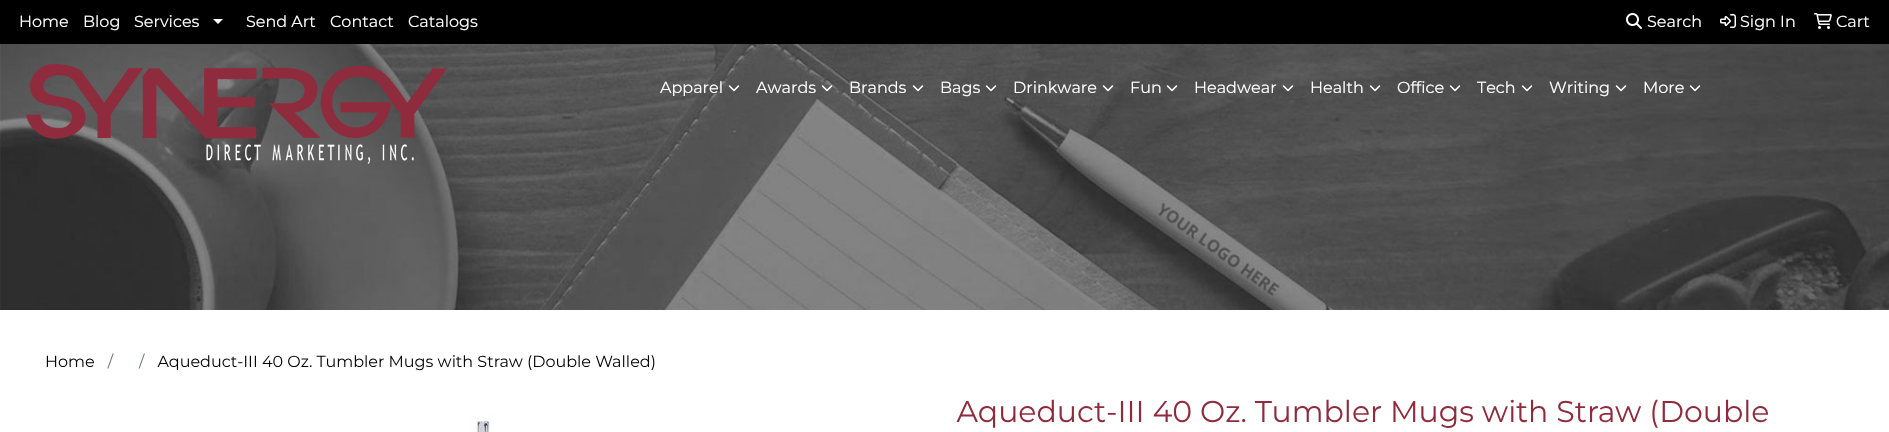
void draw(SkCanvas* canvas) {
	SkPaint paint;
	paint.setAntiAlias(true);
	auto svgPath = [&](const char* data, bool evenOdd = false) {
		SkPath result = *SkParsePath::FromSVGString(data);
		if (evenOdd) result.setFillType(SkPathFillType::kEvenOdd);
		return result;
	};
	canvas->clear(0xffffffff);
	paint.setColor(0xff000000);
	canvas->drawRect(SkRect::MakeXYWH(0, 0, 1889, 44), paint);
	SkFont f1(fontMgr->matchFamilyStyle("Montserrat", SkFontStyle(100, SkFontStyle::kNormal_Width, SkFontStyle::kUpright_Slant)), 16);
	f1.setSubpixel(true);
	paint.setColor(0xffffffff);
	canvas->drawString("Home", 19, 27, f1, paint);
	canvas->drawString("Blog", 83, 27, f1, paint);
	canvas->drawString("Services", 134, 27, f1, paint);
	canvas->drawPath(svgPath("M213 19H223L218 24Z"), paint);
	canvas->drawString("Send Art", 246, 27, f1, paint);
	canvas->drawString("Contact", 330, 27, f1, paint);
	canvas->drawString("Catalogs", 408, 27, f1, paint);
	canvas->drawImageRect(SkImages::DeferredFromEncodedData(SkData::MakeFromFileName("img1.png")), SkRect::MakeXYWH(1626, 13, 16, 16), SkSamplingOptions());
	canvas->drawString("Search", 1647, 27, f1, paint);
	canvas->drawImageRect(SkImages::DeferredFromEncodedData(SkData::MakeFromFileName("img2.png")), SkRect::MakeXYWH(1720, 14, 16, 14), SkSamplingOptions());
	canvas->drawString("Sign In", 1740, 27, f1, paint);
	canvas->drawImageRect(SkImages::DeferredFromEncodedData(SkData::MakeFromFileName("img3.png")), SkRect::MakeXYWH(1814, 13, 18, 16), SkSamplingOptions());
	canvas->drawString("Cart", 1836, 27, f1, paint);
	canvas->drawImageRect(SkImages::DeferredFromEncodedData(SkData::MakeFromFileName("img17.png")), SkRect::MakeXYWH(0, 44, 1889, 266), SkSamplingOptions());
	canvas->drawImageRect(SkImages::DeferredFromEncodedData(SkData::MakeFromFileName("img4.png")), SkRect::MakeXYWH(26, 64, 421, 100), SkSamplingOptions());
	canvas->drawString("Apparel", 660, 93, f1, paint);
	canvas->drawImageRect(SkImages::DeferredFromEncodedData(SkData::MakeFromFileName("img5.png")), SkRect::MakeXYWH(728, 85, 12, 7), SkSamplingOptions());
	canvas->drawString("Awards", 756, 93, f1, paint);
	canvas->drawImageRect(SkImages::DeferredFromEncodedData(SkData::MakeFromFileName("img6.png")), SkRect::MakeXYWH(821, 85, 12, 7), SkSamplingOptions());
	canvas->drawString("Brands", 849, 93, f1, paint);
	canvas->drawImageRect(SkImages::DeferredFromEncodedData(SkData::MakeFromFileName("img7.png")), SkRect::MakeXYWH(912, 85, 12, 7), SkSamplingOptions());
	canvas->drawString("Bags", 940, 93, f1, paint);
	canvas->drawImageRect(SkImages::DeferredFromEncodedData(SkData::MakeFromFileName("img8.png")), SkRect::MakeXYWH(985, 85, 12, 7), SkSamplingOptions());
	canvas->drawString("Drinkware", 1013, 93, f1, paint);
	canvas->drawImageRect(SkImages::DeferredFromEncodedData(SkData::MakeFromFileName("img9.png")), SkRect::MakeXYWH(1102, 85, 12, 7), SkSamplingOptions());
	canvas->drawString("Fun", 1130, 93, f1, paint);
	canvas->drawImageRect(SkImages::DeferredFromEncodedData(SkData::MakeFromFileName("img10.png")), SkRect::MakeXYWH(1166, 85, 12, 7), SkSamplingOptions());
	canvas->drawString("Headwear", 1194, 93, f1, paint);
	canvas->drawImageRect(SkImages::DeferredFromEncodedData(SkData::MakeFromFileName("img11.png")), SkRect::MakeXYWH(1282, 85, 12, 7), SkSamplingOptions());
	canvas->drawString("Health", 1310, 93, f1, paint);
	canvas->drawImageRect(SkImages::DeferredFromEncodedData(SkData::MakeFromFileName("img12.png")), SkRect::MakeXYWH(1369, 85, 12, 7), SkSamplingOptions());
	canvas->drawString("Office", 1397, 93, f1, paint);
	canvas->drawImageRect(SkImages::DeferredFromEncodedData(SkData::MakeFromFileName("img13.png")), SkRect::MakeXYWH(1449, 85, 12, 7), SkSamplingOptions());
	canvas->drawString("Tech", 1477, 93, f1, paint);
	canvas->drawImageRect(SkImages::DeferredFromEncodedData(SkData::MakeFromFileName("img14.png")), SkRect::MakeXYWH(1521, 85, 12, 7), SkSamplingOptions());
	canvas->drawString("Writing", 1549, 93, f1, paint);
	canvas->drawImageRect(SkImages::DeferredFromEncodedData(SkData::MakeFromFileName("img15.png")), SkRect::MakeXYWH(1615, 85, 12, 7), SkSamplingOptions());
	canvas->drawString("More", 1643, 93, f1, paint);
	canvas->drawImageRect(SkImages::DeferredFromEncodedData(SkData::MakeFromFileName("img16.png")), SkRect::MakeXYWH(1689, 85, 12, 7), SkSamplingOptions());
	canvas->drawImageRect(SkImages::DeferredFromEncodedData(SkData::MakeFromFileName("img18.png")), SkRect::MakeXYWH(46, 353, 1722, 79), SkSamplingOptions());
}
